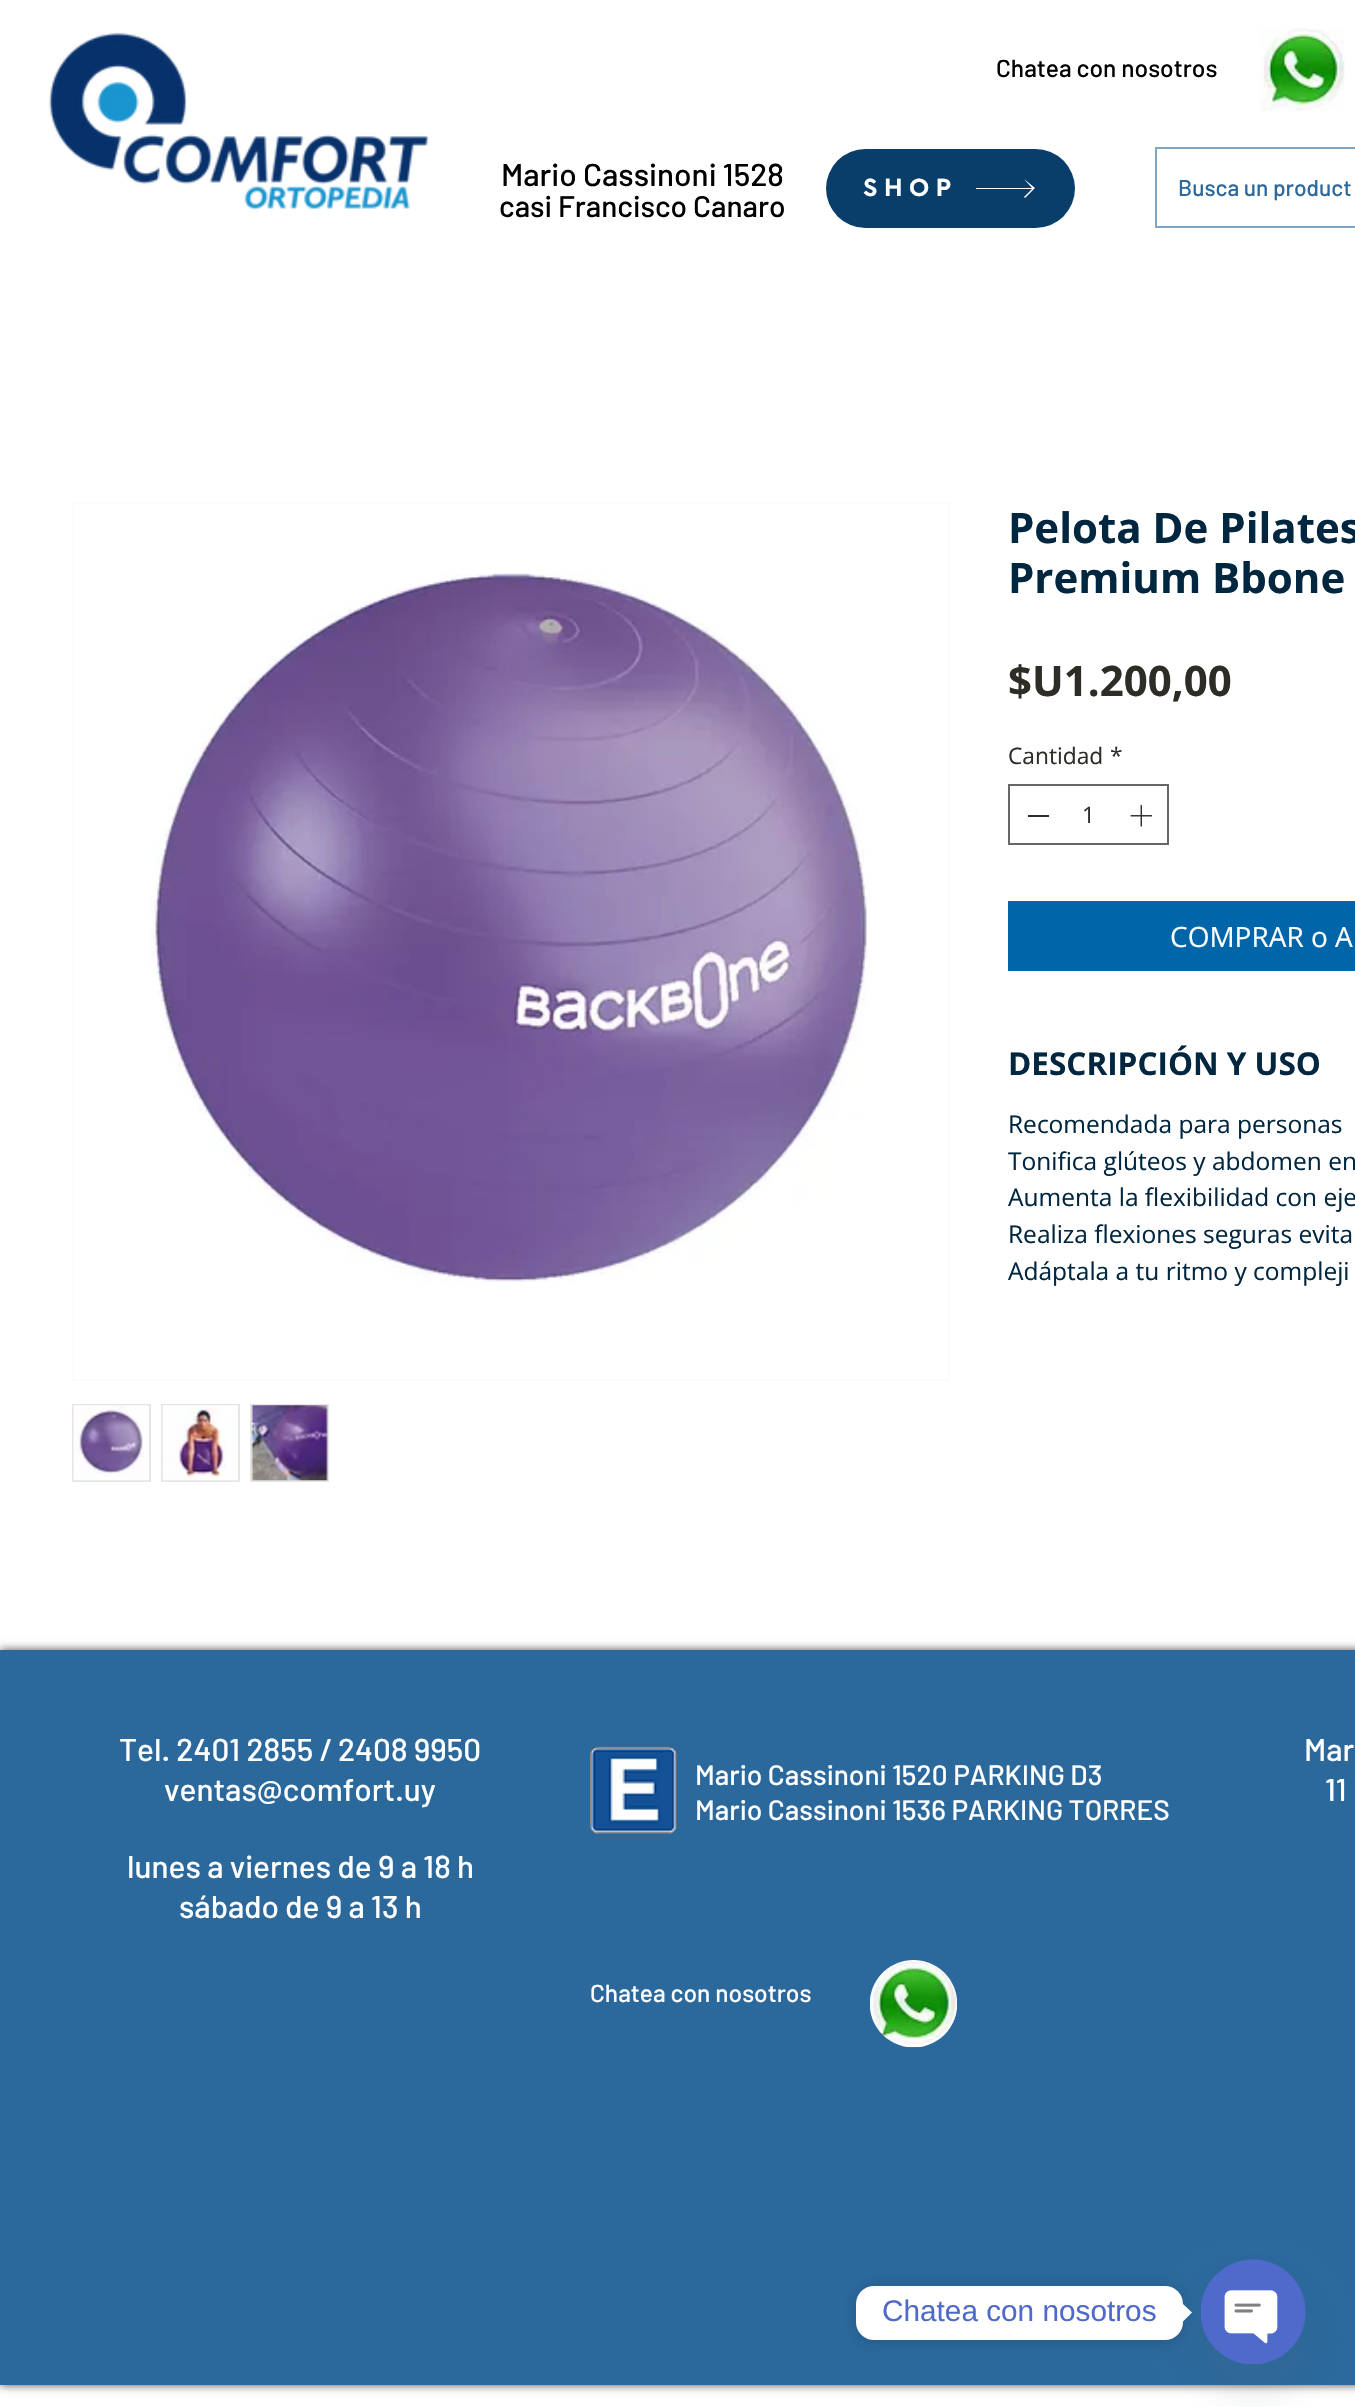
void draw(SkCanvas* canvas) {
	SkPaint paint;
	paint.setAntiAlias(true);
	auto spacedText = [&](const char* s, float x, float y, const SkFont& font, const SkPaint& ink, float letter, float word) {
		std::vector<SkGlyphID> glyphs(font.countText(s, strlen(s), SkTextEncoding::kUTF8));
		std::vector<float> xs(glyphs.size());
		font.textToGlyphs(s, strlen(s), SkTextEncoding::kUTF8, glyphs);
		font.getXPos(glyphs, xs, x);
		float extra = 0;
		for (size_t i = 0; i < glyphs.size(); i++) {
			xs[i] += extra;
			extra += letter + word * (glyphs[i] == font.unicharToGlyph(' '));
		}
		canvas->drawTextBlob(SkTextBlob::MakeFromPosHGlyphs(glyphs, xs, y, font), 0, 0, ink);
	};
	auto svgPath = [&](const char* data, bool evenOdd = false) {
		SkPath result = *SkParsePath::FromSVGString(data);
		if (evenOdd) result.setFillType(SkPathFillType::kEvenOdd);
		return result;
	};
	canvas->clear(0xffffffff);
	canvas->drawImageRect(SkImages::DeferredFromEncodedData(SkData::MakeFromFileName("img1.png")), SkRect::MakeXYWH(48, 32, 381, 178), SkSamplingOptions());
	SkFont f1(fontMgr->matchFamilyStyle("Barlow", SkFontStyle(500, SkFontStyle::kNormal_Width, SkFontStyle::kUpright_Slant)), 24.5);
	f1.setSubpixel(true);
	paint.setColor(0xff000000);
	canvas->drawString("Chatea con nosotros", 996, 77, f1, paint);
	canvas->drawImageRect(SkImages::DeferredFromEncodedData(SkData::MakeFromFileName("img2.png")), SkRect::MakeXYWH(1260, 28, 85, 84), SkSamplingOptions());
	SkFont f2(fontMgr->matchFamilyStyle("Barlow", SkFontStyle(500, SkFontStyle::kNormal_Width, SkFontStyle::kUpright_Slant)), 31.5);
	f2.setSubpixel(true);
	canvas->drawString("Mario Cassinoni 1528", 501, 186, f2, paint);
	SkFont f3(fontMgr->matchFamilyStyle("Barlow", SkFontStyle(500, SkFontStyle::kNormal_Width, SkFontStyle::kUpright_Slant)), 29.75);
	f3.setSubpixel(true);
	canvas->drawString("casi Francisco Canaro", 499, 217, f3, paint);
	paint.setColor(0xff093d6a);
	canvas->drawRoundRect(SkRect::MakeXYWH(826, 149, 249, 79), 39.5, 39.5, paint);
	SkFont f4(fontMgr->matchFamilyStyle("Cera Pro", SkFontStyle::Bold()), 26);
	f4.setSubpixel(true);
	paint.setColor(0xffffffff);
	spacedText("SHOP", 863, 196, f4, paint, 6.5, 0);
	canvas->drawPath(svgPath("M1024 179L1032 188H976V189H1032L1024 197L1025 198L1035 188Z"), paint);
	paint.setStroke(true);
	paint.setStrokeWidth(2);
	paint.setColor(0xff80a4c4);
	canvas->drawRect(SkRect::MakeXYWH(1156, 148, 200, 79), paint);
	SkFont f5(fontMgr->matchFamilyStyle("Barlow", SkFontStyle(500, SkFontStyle::kNormal_Width, SkFontStyle::kUpright_Slant)), 22.75);
	f5.setSubpixel(true);
	paint.setStroke(false);
	paint.setColor(0xff2b689c);
	canvas->drawString("Busca un product", 1178, 196, f5, paint);
	paint.setStroke(true);
	paint.setColor(0xfffafcfc);
	canvas->drawRect(SkRect::MakeXYWH(73, 503, 876, 877), paint);
	canvas->drawImageRect(SkImages::DeferredFromEncodedData(SkData::MakeFromFileName("img3.png")), SkRect::MakeXYWH(150, 573, 717, 709), SkSamplingOptions());
	paint.setColor(0xffe5e5e5);
	canvas->drawRect(SkRect::MakeXYWH(73, 1405, 77, 76), paint);
	canvas->drawImageRect(SkImages::DeferredFromEncodedData(SkData::MakeFromFileName("img4.png")), SkRect::MakeXYWH(73, 1405, 76, 76), SkSamplingOptions());
	canvas->drawRect(SkRect::MakeXYWH(162, 1405, 77, 76), paint);
	canvas->drawImageRect(SkImages::DeferredFromEncodedData(SkData::MakeFromFileName("img5.png")), SkRect::MakeXYWH(162, 1405, 76, 76), SkSamplingOptions());
	canvas->drawRect(SkRect::MakeXYWH(251, 1405, 77, 76), paint);
	canvas->drawImageRect(SkImages::DeferredFromEncodedData(SkData::MakeFromFileName("img6.png")), SkRect::MakeXYWH(251, 1405, 77, 76), SkSamplingOptions());
	SkFont f6(fontMgr->matchFamilyStyle("Open Sans", SkFontStyle::Bold()), 42);
	f6.setSubpixel(true);
	paint.setStroke(false);
	paint.setColor(0xff002640);
	canvas->drawString("Pelota De Pilates", 1008, 543, f6, paint);
	canvas->drawString("Premium Bbone", 1008, 593, f6, paint);
	paint.setColor(0xff2e2c26);
	canvas->drawString("$U1.200,00", 1008, 696, f6, paint);
	SkFont f7(fontMgr->matchFamilyStyle("Open Sans", SkFontStyle::Normal()), 22.75);
	f7.setSubpixel(true);
	canvas->drawString("Cantidad", 1008, 764, f7, paint);
	canvas->drawString("*", 1110, 764, f7, paint);
	paint.setStroke(true);
	paint.setColor(0xff666666);
	canvas->drawRect(SkRect::MakeXYWH(1009, 785, 159, 59), paint);
	paint.setStroke(false);
	paint.setColor(0xff2e2c26);
	canvas->drawRect(SkRect::MakeXYWH(1028, 815, 21, 2), paint);
	canvas->drawString("1", 1082, 823, f7, paint);
	canvas->drawImageRect(SkImages::DeferredFromEncodedData(SkData::MakeFromFileName("img7.png")), SkRect::MakeXYWH(1130, 805, 22, 22), SkSamplingOptions());
	paint.setColor(0xff0065a9);
	canvas->drawRect(SkRect::MakeXYWH(1008, 901, 347, 70), paint);
	SkFont f8(fontMgr->matchFamilyStyle("Open Sans", SkFontStyle::Normal()), 28);
	f8.setSubpixel(true);
	paint.setColor(0xffffffff);
	canvas->drawString("COMPRAR o A", 1170, 947, f8, paint);
	SkFont f9(fontMgr->matchFamilyStyle("Open Sans", SkFontStyle::Bold()), 31.5);
	f9.setSubpixel(true);
	paint.setColor(0xff002640);
	canvas->drawString("DESCRIPCIÓN Y USO", 1008, 1075, f9, paint);
	SkFont f10(fontMgr->matchFamilyStyle("Open Sans", SkFontStyle::Normal()), 24.5);
	f10.setSubpixel(true);
	canvas->drawString("Recomendada para personas", 1008, 1133, f10, paint);
	canvas->drawString("Tonifica glúteos y abdomen en", 1008, 1170, f10, paint);
	canvas->drawString("Aumenta la flexibilidad con eje", 1008, 1206, f10, paint);
	canvas->drawString("Realiza flexiones seguras evita", 1008, 1243, f10, paint);
	canvas->drawString("Adáptala a tu ritmo y compleji", 1008, 1280, f10, paint);
	paint.setColor(0xb3000000);
	paint.setMaskFilter(SkMaskFilter::MakeBlur(kNormal_SkBlurStyle, 4.5));
	canvas->drawRect(SkRect::MakeXYWH(0, 1650, 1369, 735), paint);
	paint.setMaskFilter(nullptr);
	paint.setColor(0xff2b689c);
	canvas->drawRect(SkRect::MakeXYWH(0, 1650, 1355, 735), paint);
	paint.setColor(0xffffffff);
	canvas->drawString("Tel. 2401 2855 / 2408 9950", 119, 1761, f2, paint);
	canvas->drawString("ventas@comfort.uy", 164, 1801, f2, paint);
	canvas->drawString("lunes a viernes de 9 a 18 h", 127, 1878, f2, paint);
	canvas->drawString("sábado de 9 a 13 h", 179, 1918, f2, paint);
	canvas->drawRoundRect(SkRect::MakeXYWH(590, 1747, 87, 87), 9, 9, paint);
	canvas->drawImageRect(SkImages::DeferredFromEncodedData(SkData::MakeFromFileName("img8.png")), SkRect::MakeXYWH(590, 1746, 87, 88), SkSamplingOptions());
	SkFont f11(fontMgr->matchFamilyStyle("Barlow", SkFontStyle(500, SkFontStyle::kNormal_Width, SkFontStyle::kUpright_Slant)), 28);
	f11.setSubpixel(true);
	canvas->drawString("Mario Cassinoni 1520 PARKING D3", 695, 1785, f11, paint);
	canvas->drawString("Mario Cassinoni 1536 PARKING TORRES", 695, 1820, f11, paint);
	canvas->drawString("Mar", 1304, 1761, f2, paint);
	canvas->drawString("11", 1325, 1801, f2, paint);
	canvas->drawString("Chatea con nosotros", 590, 2002, f1, paint);
	canvas->drawImageRect(SkImages::DeferredFromEncodedData(SkData::MakeFromFileName("img9.png")), SkRect::MakeXYWH(870, 1960, 87, 88), SkSamplingOptions());
	canvas->save();
	canvas->clipPath(svgPath("M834 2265H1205V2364H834ZM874 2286H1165C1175 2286 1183 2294 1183 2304V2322C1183 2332 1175 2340 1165 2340H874C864 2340 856 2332 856 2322V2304C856 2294 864 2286 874 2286Z", true), true);
	paint.setColor(0x26000000);
	paint.setMaskFilter(SkMaskFilter::MakeBlur(kNormal_SkBlurStyle, 7));
	canvas->drawRoundRect(SkRect::MakeXYWH(856, 2287, 327, 55), 18, 18, paint);
	paint.setMaskFilter(nullptr);
	canvas->restore();
	paint.setColor(0xffffffff);
	canvas->drawRoundRect(SkRect::MakeXYWH(856, 2286, 327, 54), 18, 18, paint);
	SkFont f12(fontMgr->matchFamilyStyle("Liberation Sans", SkFontStyle::Normal()), 29.75);
	f12.setSubpixel(true);
	paint.setColor(0xff4f6aca);
	canvas->drawString("Chatea con nosotros", 882, 2321, f12, paint);
	paint.setColor(0xffffffff);
	canvas->drawPath(svgPath("M1183 2321.5V2304L1192 2312.5Z"), paint);
	paint.setColor(0x2949687e);
	paint.setMaskFilter(SkMaskFilter::MakeBlur(kNormal_SkBlurStyle, 21));
	canvas->drawRoundRect(SkRect::MakeXYWH(1201, 2287, 105, 105), 52.5, 52.5, paint);
	paint.setMaskFilter(nullptr);
	canvas->drawImageRect(SkImages::DeferredFromEncodedData(SkData::MakeFromFileName("img10.png")), SkRect::MakeXYWH(1201, 2259, 105, 105), SkSamplingOptions());
}
